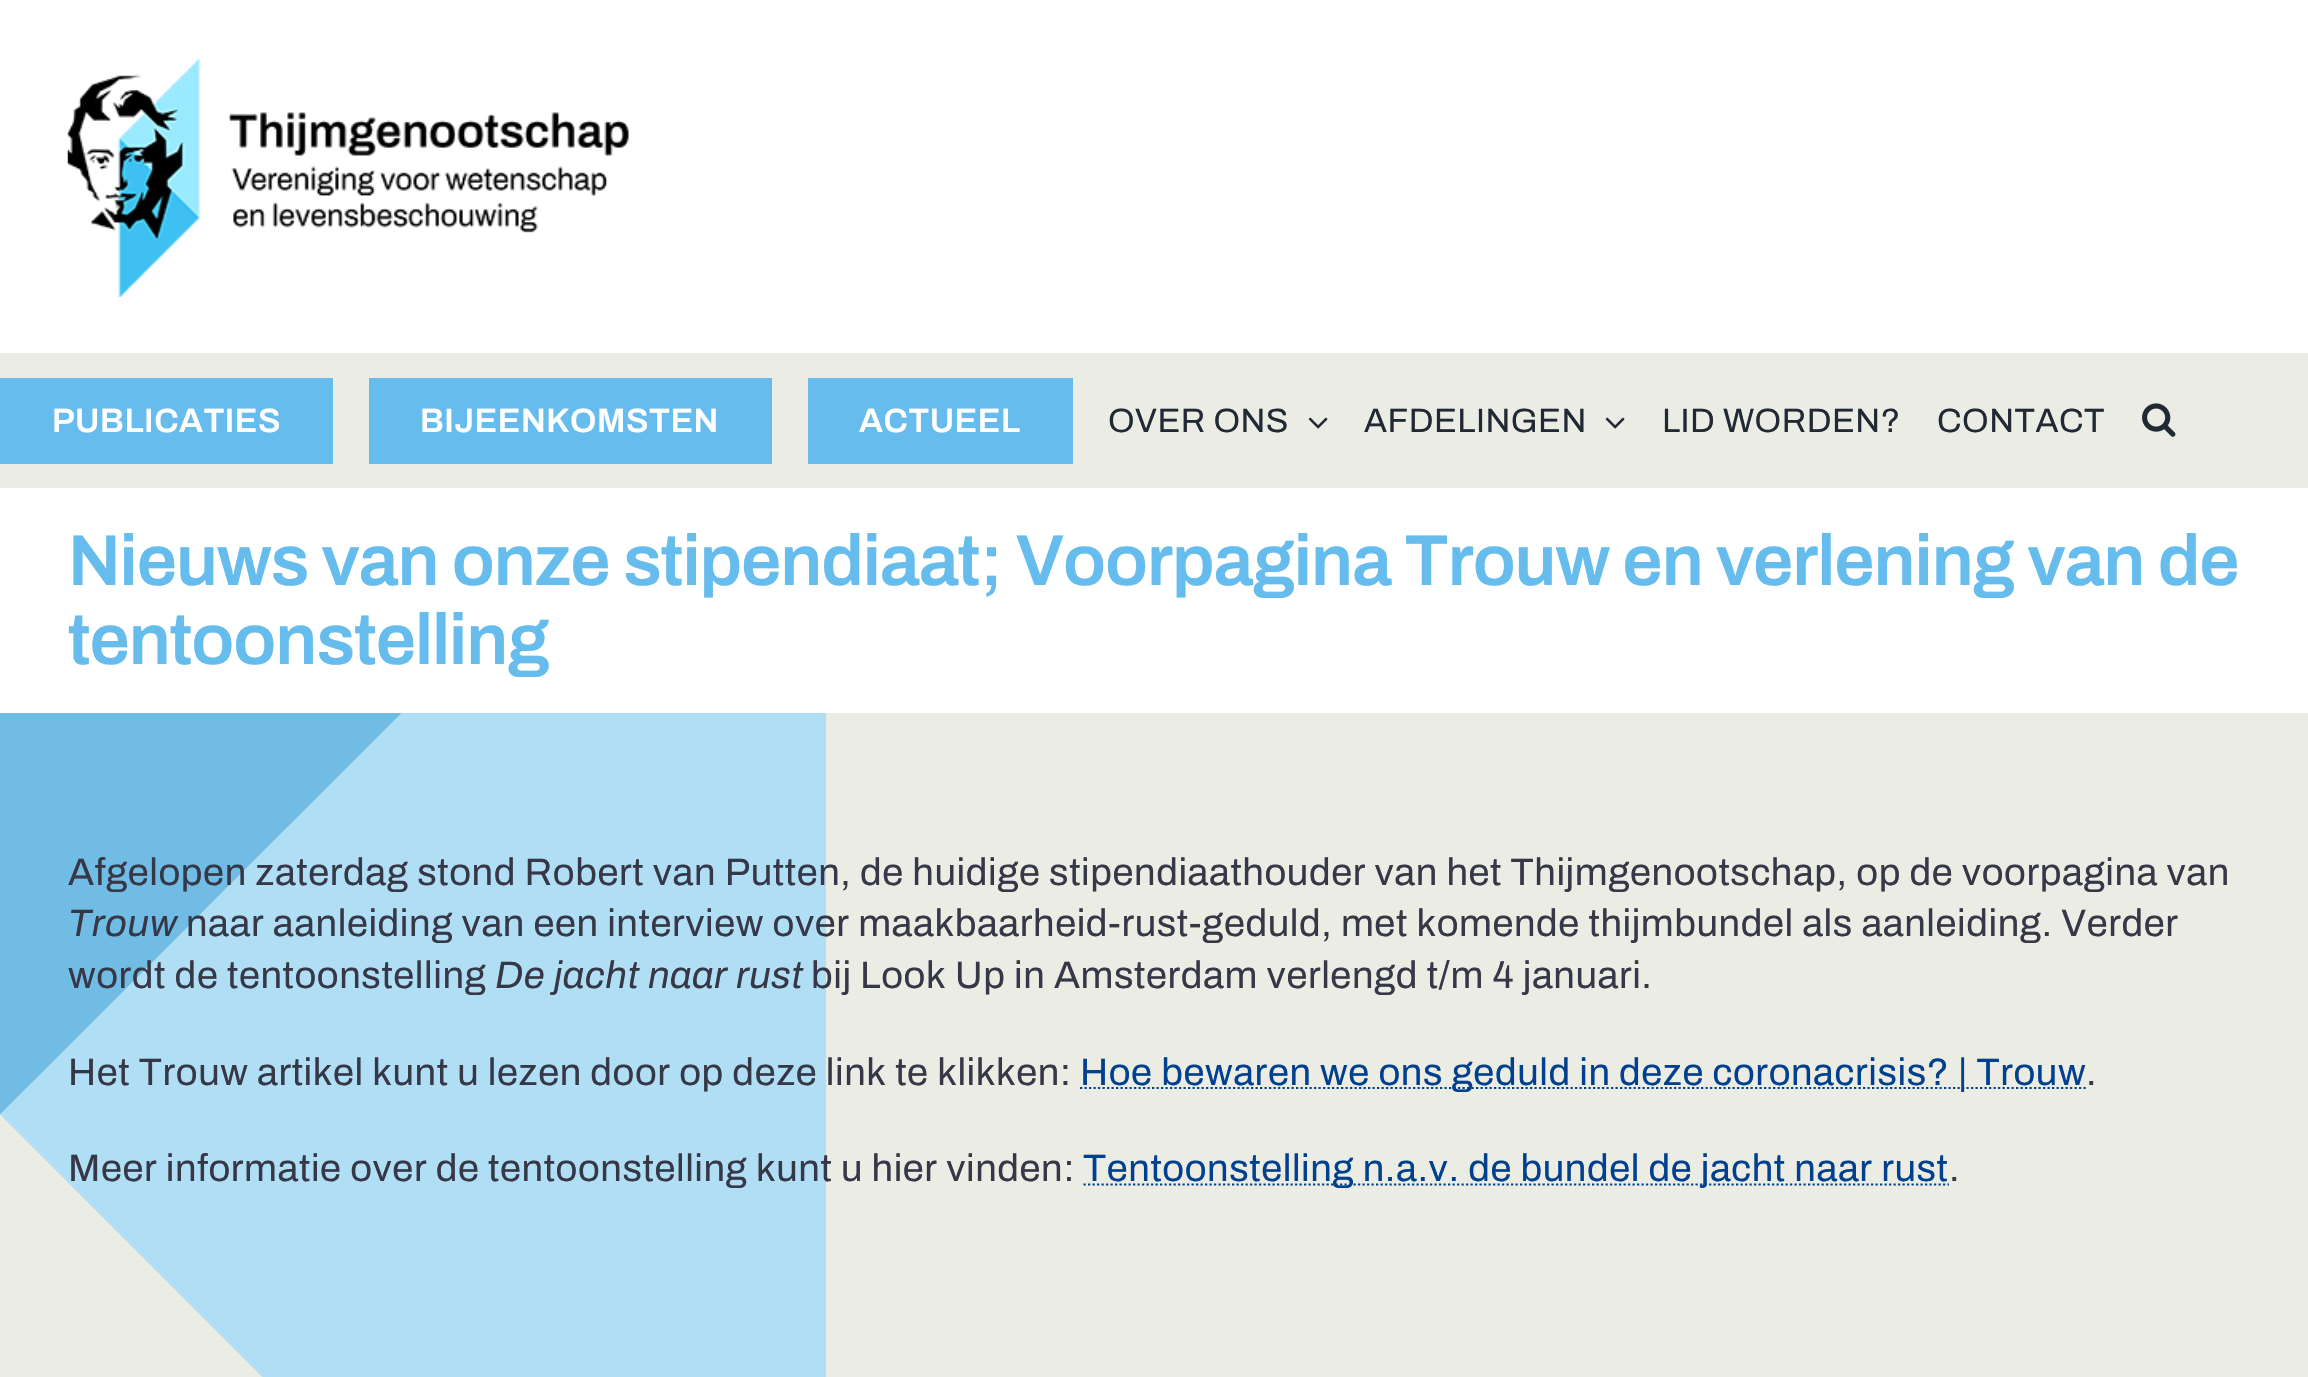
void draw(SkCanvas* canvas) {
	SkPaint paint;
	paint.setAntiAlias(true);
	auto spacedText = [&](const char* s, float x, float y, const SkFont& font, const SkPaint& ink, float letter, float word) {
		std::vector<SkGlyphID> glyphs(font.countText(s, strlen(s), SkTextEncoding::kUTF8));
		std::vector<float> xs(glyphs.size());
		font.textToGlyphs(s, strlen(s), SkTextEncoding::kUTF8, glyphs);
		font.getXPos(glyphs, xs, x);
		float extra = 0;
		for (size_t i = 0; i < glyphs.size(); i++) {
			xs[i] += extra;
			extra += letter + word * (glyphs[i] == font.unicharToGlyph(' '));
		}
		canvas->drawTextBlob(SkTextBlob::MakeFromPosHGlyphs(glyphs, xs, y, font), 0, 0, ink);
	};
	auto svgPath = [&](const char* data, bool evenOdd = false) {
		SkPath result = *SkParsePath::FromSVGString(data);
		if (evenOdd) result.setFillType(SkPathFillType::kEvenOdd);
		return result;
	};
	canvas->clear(0xffebede4);
	paint.setColor(0xffffffff);
	canvas->drawRect(SkRect::MakeXYWH(0, 0, 2308, 353), paint);
	canvas->drawImageRect(SkImages::DeferredFromEncodedData(SkData::MakeFromFileName("img1.png")), SkRect::MakeXYWH(67, 58, 562, 239), SkSamplingOptions());
	paint.setColor(0xff66bded);
	canvas->drawRect(SkRect::MakeXYWH(0, 378, 333, 86), paint);
	SkFont f1(fontMgr->matchFamilyStyle("Archivo", SkFontStyle(600, SkFontStyle::kNormal_Width, SkFontStyle::kUpright_Slant)), 33.75);
	f1.setSubpixel(true);
	paint.setColor(0xffffffff);
	spacedText("PUBLICATIES", 52, 432, f1, paint, 0.5, 0);
	paint.setColor(0xff66bded);
	canvas->drawRect(SkRect::MakeXYWH(369, 378, 403, 86), paint);
	paint.setColor(0xffffffff);
	spacedText("BIJEENKOMSTEN", 420, 432, f1, paint, 0.5, 0);
	paint.setColor(0xff66bded);
	canvas->drawRect(SkRect::MakeXYWH(808, 378, 265, 86), paint);
	paint.setColor(0xffffffff);
	spacedText("ACTUEEL", 859, 432, f1, paint, 0.5, 0);
	SkFont f2(fontMgr->matchFamilyStyle("Archivo", SkFontStyle::Normal()), 33.75);
	f2.setSubpixel(true);
	paint.setColor(0xff212934);
	spacedText("OVER ONS", 1108, 432, f2, paint, 0.5, 0);
	canvas->drawImageRect(SkImages::DeferredFromEncodedData(SkData::MakeFromFileName("img2.png")), SkRect::MakeXYWH(1308, 417, 20, 12), SkSamplingOptions());
	spacedText("AFDELINGEN", 1364, 432, f2, paint, 0.5, 0);
	canvas->drawImageRect(SkImages::DeferredFromEncodedData(SkData::MakeFromFileName("img2.png")), SkRect::MakeXYWH(1605, 417, 20, 12), SkSamplingOptions());
	spacedText("LID WORDEN?", 1662, 432, f2, paint, 0.5, 0);
	spacedText("CONTACT", 1937, 432, f2, paint, 0.5, 0);
	canvas->drawImageRect(SkImages::DeferredFromEncodedData(SkData::MakeFromFileName("img3.png")), SkRect::MakeXYWH(2142, 403, 34, 34), SkSamplingOptions());
	paint.setColor(0xffffffff);
	canvas->drawRect(SkRect::MakeXYWH(0, 488, 2308, 225), paint);
	SkFont f3(fontMgr->matchFamilyStyle("Archivo", SkFontStyle(600, SkFontStyle::kNormal_Width, SkFontStyle::kUpright_Slant)), 72);
	f3.setSubpixel(true);
	paint.setColor(0xff66bded);
	spacedText("Nieuws van onze stipendiaat; Voorpagina Trouw en verlening van de", 68, 585, f3, paint, -1.08, 0);
	spacedText("tentoonstelling", 68, 664, f3, paint, -1.08, 0);
	canvas->drawImageRect(SkImages::DeferredFromEncodedData(SkData::MakeFromFileName("img4.png")), SkRect::MakeXYWH(0, 713, 826, 664), SkSamplingOptions());
	SkFont f4(fontMgr->matchFamilyStyle("Archivo", SkFontStyle::Normal()), 38.25);
	f4.setSubpixel(true);
	paint.setColor(0xff363747);
	spacedText("Afgelopen zaterdag stond Robert van Putten, de huidige stipendiaathouder van het Thijmgenootschap, op de voorpagina van", 68, 885, f4, paint, 0.57, 0);
	SkFont f5(fontMgr->matchFamilyStyle("Archivo", SkFontStyle::Italic()), 38.25);
	f5.setSubpixel(true);
	spacedText("Trouw", 68, 936, f5, paint, 0.57, 0);
	spacedText("naar aanleiding van een interview over maakbaarheid-rust-geduld, met komende thijmbundel als aanleiding. Verder", 186, 936, f4, paint, 0.57, 0);
	spacedText("wordt de tentoonstelling", 68, 988, f4, paint, 0.57, 0);
	spacedText("De jacht naar rust", 495, 988, f5, paint, 0.57, 0);
	spacedText("bij Look Up in Amsterdam verlengd t/m 4 januari.", 811, 988, f4, paint, 0.57, 0);
	spacedText("Het Trouw artikel kunt u lezen door op deze link te klikken:", 68, 1085, f4, paint, 0.57, 0);
	paint.setStroke(true);
	paint.setStrokeWidth(2.2);
	paint.setColor(0xff00408e);
	paint.setPathEffect(SkDashPathEffect::Make({{2.25f, 2.25f}}, 0));
	canvas->drawPath(svgPath("M1080 1088H2086.5"), paint);
	paint.setPathEffect(nullptr);
	paint.setStroke(false);
	spacedText("Hoe bewaren we ons geduld in deze coronacrisis? | Trouw", 1080, 1085, f4, paint, 0.57, 0);
	paint.setColor(0xff363747);
	spacedText(".", 2086, 1085, f4, paint, 0.57, 0);
	spacedText("Meer informatie over de tentoonstelling kunt u hier vinden:", 68, 1181, f4, paint, 0.57, 0);
	paint.setStroke(true);
	paint.setColor(0xff00408e);
	paint.setPathEffect(SkDashPathEffect::Make({{2.25f, 2.25f}}, 0));
	canvas->drawPath(svgPath("M1083.5 1184.5H1949"), paint);
	paint.setPathEffect(nullptr);
	paint.setStroke(false);
	spacedText("Tentoonstelling n.a.v. de bundel de jacht naar rust", 1083, 1181, f4, paint, 0.57, 0);
	paint.setColor(0xff363747);
	spacedText(".", 1949, 1181, f4, paint, 0.57, 0);
}
